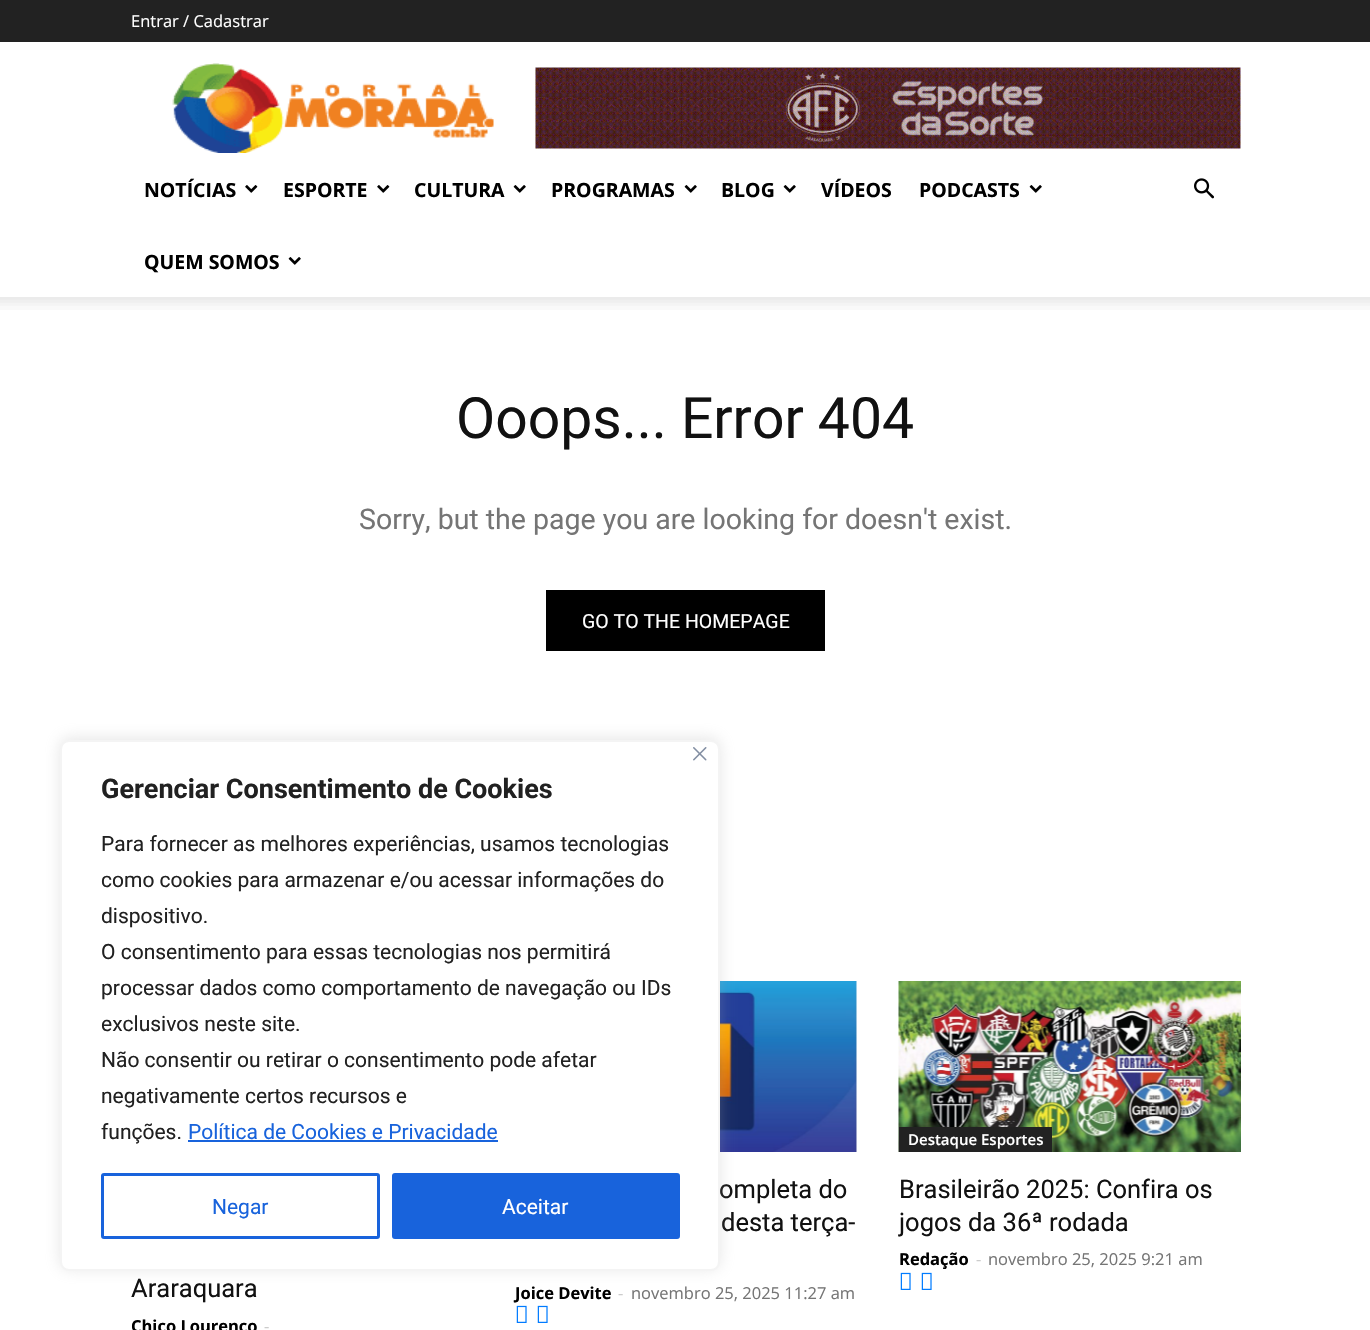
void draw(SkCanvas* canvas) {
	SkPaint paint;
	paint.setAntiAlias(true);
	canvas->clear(0xffffffff);
	paint.setColor(0xff222222);
	canvas->drawRect(SkRect::MakeXYWH(0, 0, 1370, 42), paint);
	SkFont f1(fontMgr->matchFamilyStyle("Open Sans", SkFontStyle::Normal()), 16.5);
	f1.setSubpixel(true);
	paint.setColor(0xffffffff);
	canvas->drawString("Entrar / Cadastrar", 131, 27, f1, paint);
	canvas->drawImageRect(SkImages::DeferredFromEncodedData(SkData::MakeFromFileName("img1.png")), SkRect::MakeXYWH(172, 63, 322, 90), SkSamplingOptions());
	canvas->drawImageRect(SkImages::DeferredFromEncodedData(SkData::MakeFromFileName("img2.png")), SkRect::MakeXYWH(535, 67, 706, 82), SkSamplingOptions());
	SkFont f2(fontMgr->matchFamilyStyle("Open Sans", SkFontStyle::Bold()), 19.5);
	f2.setSubpixel(true);
	paint.setColor(0xff000000);
	canvas->drawString("NOTÍCIAS", 144, 197, f2, paint);
	canvas->drawImageRect(SkImages::DeferredFromEncodedData(SkData::MakeFromFileName("img3.png")), SkRect::MakeXYWH(245, 185, 13, 8), SkSamplingOptions());
	canvas->drawString("ESPORTE", 283, 197, f2, paint);
	canvas->drawImageRect(SkImages::DeferredFromEncodedData(SkData::MakeFromFileName("img3.png")), SkRect::MakeXYWH(377, 185, 13, 8), SkSamplingOptions());
	canvas->drawString("CULTURA", 414, 197, f2, paint);
	canvas->drawImageRect(SkImages::DeferredFromEncodedData(SkData::MakeFromFileName("img4.png")), SkRect::MakeXYWH(513, 185, 13, 8), SkSamplingOptions());
	canvas->drawString("PROGRAMAS", 551, 197, f2, paint);
	canvas->drawImageRect(SkImages::DeferredFromEncodedData(SkData::MakeFromFileName("img4.png")), SkRect::MakeXYWH(684, 185, 13, 8), SkSamplingOptions());
	canvas->drawString("BLOG", 721, 197, f2, paint);
	canvas->drawImageRect(SkImages::DeferredFromEncodedData(SkData::MakeFromFileName("img4.png")), SkRect::MakeXYWH(783, 185, 13, 8), SkSamplingOptions());
	canvas->drawString("VÍDEOS", 821, 197, f2, paint);
	canvas->drawString("PODCASTS", 919, 197, f2, paint);
	canvas->drawImageRect(SkImages::DeferredFromEncodedData(SkData::MakeFromFileName("img4.png")), SkRect::MakeXYWH(1029, 185, 13, 8), SkSamplingOptions());
	canvas->drawString("QUEM SOMOS", 144, 269, f2, paint);
	canvas->drawImageRect(SkImages::DeferredFromEncodedData(SkData::MakeFromFileName("img4.png")), SkRect::MakeXYWH(288, 257, 13, 8), SkSamplingOptions());
	canvas->drawImageRect(SkImages::DeferredFromEncodedData(SkData::MakeFromFileName("img5.png")), SkRect::MakeXYWH(1194, 178, 20, 21), SkSamplingOptions());
	canvas->drawImageRect(SkImages::DeferredFromEncodedData(SkData::MakeFromFileName("img6.png")), SkRect::MakeXYWH(0, 297, 1370, 13), SkSamplingOptions());
	SkFont f3(fontMgr->matchFamilyStyle("Roboto", SkFontStyle::Normal()), 57);
	f3.setSubpixel(true);
	paint.setColor(0xff111111);
	canvas->drawString("Ooops... Error 404", 456, 438, f3, paint);
	SkFont f4(fontMgr->matchFamilyStyle("Roboto", SkFontStyle::Normal()), 28.5);
	f4.setSubpixel(true);
	paint.setColor(0xff757575);
	canvas->drawString("Sorry, but the page you are looking for doesn't exist.", 359, 529, f4, paint);
	paint.setColor(0xff000000);
	canvas->drawRect(SkRect::MakeXYWH(546, 590, 279, 61), paint);
	SkFont f5(fontMgr->matchFamilyStyle("Roboto", SkFontStyle::Normal()), 19.5);
	f5.setSubpixel(true);
	paint.setColor(0xffffffff);
	canvas->drawString("GO TO THE HOMEPAGE", 582, 628, f5, paint);
	SkFont f6(fontMgr->matchFamilyStyle("Roboto", SkFontStyle::Normal()), 25.5);
	f6.setSubpixel(true);
	paint.setColor(0xff111111);
	canvas->drawString("Araraquara", 131, 1297, f6, paint);
	SkFont f7(fontMgr->matchFamilyStyle("Open Sans", SkFontStyle::Bold()), 16.5);
	f7.setSubpixel(true);
	paint.setColor(0xff000000);
	canvas->drawString("Chico Lourenço", 131, 1332, f7, paint);
	paint.setColor(0xffcccccc);
	canvas->drawString("-", 264, 1332, f1, paint);
	canvas->drawImageRect(SkImages::DeferredFromEncodedData(SkData::MakeFromFileName("img7.png")), SkRect::MakeXYWH(720, 981, 137, 171), SkSamplingOptions());
	paint.setColor(0x66000000);
	paint.setMaskFilter(SkMaskFilter::MakeBlur(kNormal_SkBlurStyle, 4.5));
	canvas->drawRoundRect(SkRect::MakeXYWH(656, 1037, 60, 60), 30, 30, paint);
	paint.setMaskFilter(nullptr);
	paint.setColor(0xff111111);
	canvas->drawString("ompleta do", 719, 1198, f6, paint);
	canvas->drawString("desta terça-", 721, 1231, f6, paint);
	paint.setColor(0xff000000);
	canvas->drawString("Joice Devite", 515, 1299, f7, paint);
	paint.setColor(0xffcccccc);
	canvas->drawString("-", 618, 1299, f1, paint);
	paint.setColor(0xff757575);
	canvas->drawString("novembro 25, 2025 11:27 am", 631, 1299, f1, paint);
	canvas->drawImageRect(SkImages::DeferredFromEncodedData(SkData::MakeFromFileName("img8.png")), SkRect::MakeXYWH(516, 1305, 11, 18), SkSamplingOptions());
	canvas->drawImageRect(SkImages::DeferredFromEncodedData(SkData::MakeFromFileName("img8.png")), SkRect::MakeXYWH(537, 1305, 11, 18), SkSamplingOptions());
	canvas->drawImageRect(SkImages::DeferredFromEncodedData(SkData::MakeFromFileName("img9.png")), SkRect::MakeXYWH(898, 981, 343, 171), SkSamplingOptions());
	paint.setColor(0xff222222);
	canvas->drawRect(SkRect::MakeXYWH(899, 1127, 153, 25), paint);
	SkFont f8(fontMgr->matchFamilyStyle("Open Sans", SkFontStyle(600, SkFontStyle::kNormal_Width, SkFontStyle::kUpright_Slant)), 15);
	f8.setSubpixel(true);
	paint.setColor(0xffffffff);
	canvas->drawString("Destaque Esportes", 908, 1145, f8, paint);
	paint.setColor(0xff111111);
	canvas->drawString("Brasileirão 2025: Confira os", 899, 1198, f6, paint);
	canvas->drawString("jogos da 36ª rodada", 899, 1231, f6, paint);
	paint.setColor(0xff000000);
	canvas->drawString("Redação", 899, 1265, f7, paint);
	paint.setColor(0xffcccccc);
	canvas->drawString("-", 976, 1265, f1, paint);
	paint.setColor(0xff757575);
	canvas->drawString("novembro 25, 2025 9:21 am", 988, 1265, f1, paint);
	canvas->drawImageRect(SkImages::DeferredFromEncodedData(SkData::MakeFromFileName("img8.png")), SkRect::MakeXYWH(900, 1272, 11, 18), SkSamplingOptions());
	canvas->drawImageRect(SkImages::DeferredFromEncodedData(SkData::MakeFromFileName("img8.png")), SkRect::MakeXYWH(921, 1272, 11, 18), SkSamplingOptions());
	paint.setColor(0x4dacabab);
	paint.setMaskFilter(SkMaskFilter::MakeBlur(kNormal_SkBlurStyle, 7.5));
	canvas->drawRoundRect(SkRect::MakeXYWH(60, 738, 660, 531), 9, 9, paint);
	paint.setMaskFilter(nullptr);
	paint.setColor(0xffffffff);
	canvas->drawRoundRect(SkRect::MakeXYWH(61, 741, 658, 529), 8, 8, paint);
	paint.setStroke(true);
	paint.setStrokeWidth(2);
	paint.setColor(0xfff4f4f4);
	canvas->drawRoundRect(SkRect::MakeXYWH(61, 741, 658, 529), 8, 8, paint);
	canvas->drawImageRect(SkImages::DeferredFromEncodedData(SkData::MakeFromFileName("img10.png")), SkRect::MakeXYWH(693, 747, 14, 14), SkSamplingOptions());
	SkFont f9(fontMgr->matchFamilyStyle("Roboto", SkFontStyle::Bold()), 27);
	f9.setSubpixel(true);
	paint.setStroke(false);
	paint.setColor(0xff212121);
	canvas->drawString("Gerenciar Consentimento de Cookies", 101, 798, f9, paint);
	SkFont f10(fontMgr->matchFamilyStyle("Roboto", SkFontStyle::Normal()), 21);
	f10.setSubpixel(true);
	canvas->drawString("Para fornecer as melhores experiências, usamos tecnologias", 101, 851, f10, paint);
	canvas->drawString("como cookies para armazenar e/ou acessar informações do", 101, 887, f10, paint);
	canvas->drawString("dispositivo.", 101, 923, f10, paint);
	canvas->drawString("O consentimento para essas tecnologias nos permitirá", 101, 959, f10, paint);
	canvas->drawString("processar dados como comportamento de navegação ou IDs", 101, 995, f10, paint);
	canvas->drawString("exclusivos neste site.", 101, 1031, f10, paint);
	canvas->drawString("Não consentir ou retirar o consentimento pode afetar", 101, 1067, f10, paint);
	canvas->drawString("negativamente certos recursos e", 101, 1103, f10, paint);
	canvas->drawString("funções.", 101, 1139, f10, paint);
	paint.setColor(0xff1863dc);
	canvas->drawString("Política de Cookies e Privacidade", 188, 1139, f10, paint);
	canvas->drawRect(SkRect::MakeXYWH(188, 1140, 310, 2), paint);
	paint.setStroke(true);
	paint.setStrokeWidth(3);
	canvas->drawRoundRect(SkRect::MakeXYWH(102.5, 1174.5, 276, 63), 1.5, 1.5, paint);
	paint.setStroke(false);
	canvas->drawString("Negar", 212, 1214, f10, paint);
	canvas->drawRoundRect(SkRect::MakeXYWH(393.5, 1174.5, 285, 63), 1.5, 1.5, paint);
	paint.setStroke(true);
	canvas->drawRoundRect(SkRect::MakeXYWH(393.5, 1174.5, 285, 63), 1.5, 1.5, paint);
	paint.setStroke(false);
	paint.setColor(0xffffffff);
	canvas->drawString("Aceitar", 502, 1214, f10, paint);
}
